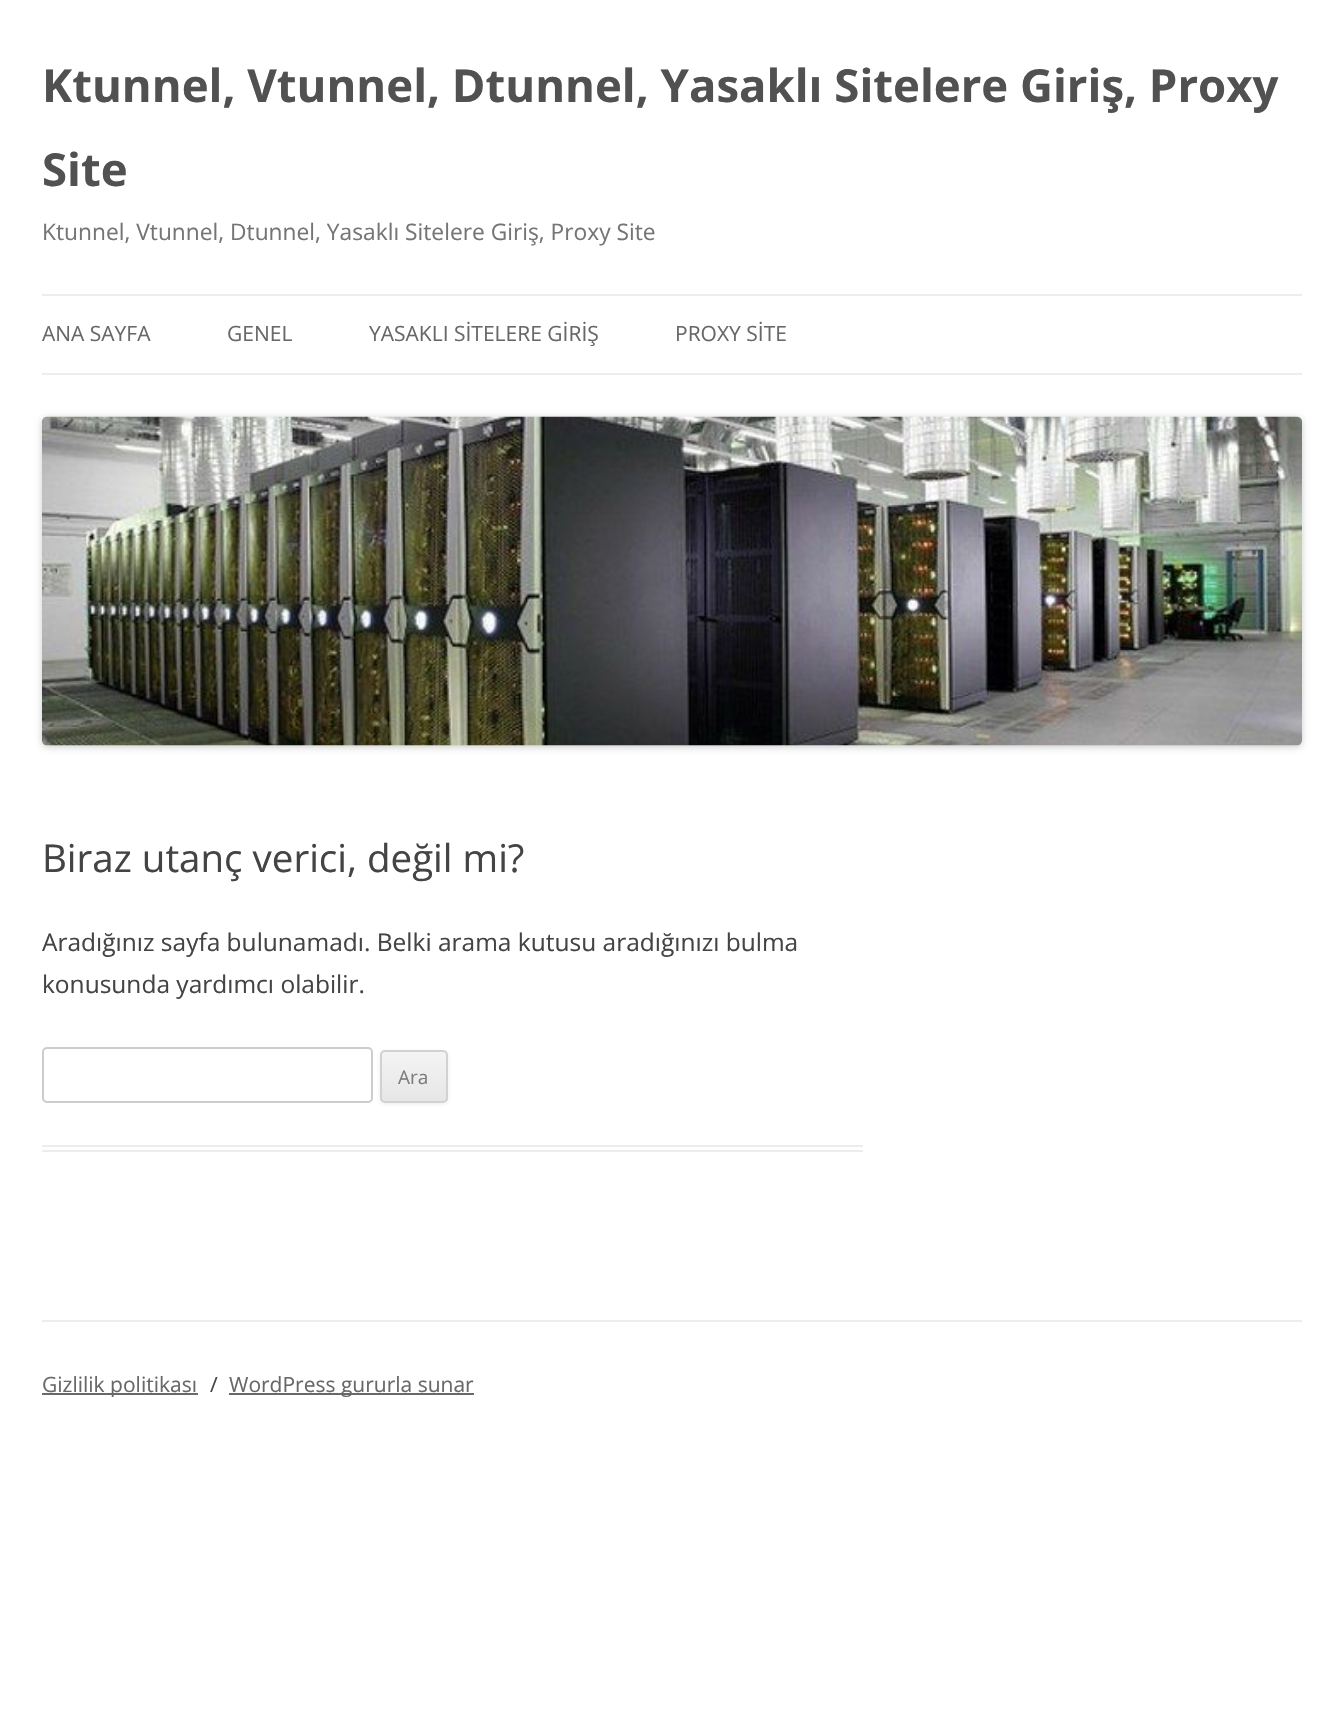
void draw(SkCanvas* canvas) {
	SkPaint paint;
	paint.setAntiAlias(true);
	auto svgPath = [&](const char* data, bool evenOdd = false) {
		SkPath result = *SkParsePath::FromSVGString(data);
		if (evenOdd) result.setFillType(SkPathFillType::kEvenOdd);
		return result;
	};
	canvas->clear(0xffffffff);
	SkFont f1(fontMgr->matchFamilyStyle("Open Sans", SkFontStyle::Bold()), 45.5);
	f1.setSubpixel(true);
	paint.setColor(0xff515151);
	canvas->drawString("Ktunnel, Vtunnel, Dtunnel, Yasaklı Sitelere Giriş, Proxy", 42, 102, f1, paint);
	canvas->drawString("Site", 42, 186, f1, paint);
	SkFont f2(fontMgr->matchFamilyStyle("Open Sans", SkFontStyle::Normal()), 22.75);
	f2.setSubpixel(true);
	paint.setColor(0xff757575);
	canvas->drawString("Ktunnel, Vtunnel, Dtunnel, Yasaklı Sitelere Giriş, Proxy Site", 42, 240, f2, paint);
	paint.setColor(0xffededed);
	canvas->drawRect(SkRect::MakeXYWH(42, 294, 1260, 2), paint);
	canvas->drawRect(SkRect::MakeXYWH(42, 373, 1260, 2), paint);
	SkFont f3(fontMgr->matchFamilyStyle("Open Sans", SkFontStyle::Normal()), 21);
	f3.setSubpixel(true);
	paint.setColor(0xff686868);
	canvas->drawString("ANA SAYFA", 42, 341, f3, paint);
	canvas->drawString("GENEL", 227, 341, f3, paint);
	canvas->drawString("YASAKLI SİTELERE GİRİŞ", 369, 341, f3, paint);
	canvas->drawString("PROXY SİTE", 675, 341, f3, paint);
	paint.setColor(0x33000000);
	paint.setMaskFilter(SkMaskFilter::MakeBlur(kNormal_SkBlurStyle, 3.5));
	canvas->drawRoundRect(SkRect::MakeXYWH(42, 418, 1260, 329), 5, 5, paint);
	paint.setMaskFilter(nullptr);
	canvas->drawImageRect(SkImages::DeferredFromEncodedData(SkData::MakeFromFileName("img1.png")), SkRect::MakeXYWH(42, 416, 1260, 330), SkSamplingOptions());
	paint.setColor(0xffededed);
	canvas->drawRect(SkRect::MakeXYWH(42, 1145, 821, 2), paint);
	canvas->drawRect(SkRect::MakeXYWH(42, 1150, 821, 2), paint);
	SkFont f4(fontMgr->matchFamilyStyle("Open Sans", SkFontStyle::Normal()), 38.5);
	f4.setSubpixel(true);
	paint.setColor(0xff444444);
	canvas->drawString("Biraz utanç verici, değil mi?", 42, 872, f4, paint);
	SkFont f5(fontMgr->matchFamilyStyle("Open Sans", SkFontStyle::Normal()), 24.5);
	f5.setSubpixel(true);
	canvas->drawString("Aradığınız sayfa bulunamadı. Belki arama kutusu aradığınızı bulma", 42, 951, f5, paint);
	canvas->drawString("konusunda yardımcı olabilir.", 42, 993, f5, paint);
	paint.setStroke(true);
	paint.setStrokeWidth(2);
	paint.setColor(0xffcccccc);
	canvas->drawRoundRect(SkRect::MakeXYWH(43, 1048, 329, 54), 4, 4, paint);
	paint.setStroke(false);
	paint.setColor(0x1a404040);
	paint.setMaskFilter(SkMaskFilter::MakeBlur(kNormal_SkBlurStyle, 2));
	canvas->drawRoundRect(SkRect::MakeXYWH(380, 1052, 68, 52), 5, 5, paint);
	paint.setMaskFilter(nullptr);
	canvas->save();
	canvas->clipPath(svgPath("M385 1050H443C446 1050 448 1052 448 1055V1098C448 1101 446 1103 443 1103H385C382 1103 380 1101 380 1098V1055C380 1052 382 1050 385 1050Z"), true);
	{
		const SkColor colors[] = {0xfff4f4f4, 0xffe6e6e6};
		const float stops[] = {0, 1};
		const SkPoint ends[] = {{414, 1052}, {414, 1101}};
		paint.setShader(SkGradientShader::MakeLinear(ends, colors, stops, 2, SkTileMode::kClamp));
		paint.setAlpha(255);
	}
	canvas->drawRect(SkRect::MakeXYWH(380, 1052, 68, 49), paint);
	canvas->restore();
	paint.setStroke(true);
	paint.setShader(nullptr);
	paint.setColor(0xffd2d2d2);
	canvas->drawRoundRect(SkRect::MakeXYWH(381, 1051, 66, 51), 4, 4, paint);
	SkFont f6(fontMgr->matchFamilyStyle("Open Sans", SkFontStyle::Normal()), 19);
	f6.setSubpixel(true);
	paint.setStroke(false);
	paint.setColor(0xff7c7c7c);
	canvas->drawString("Ara", 398, 1084, f6, paint);
	paint.setColor(0xffededed);
	canvas->drawRect(SkRect::MakeXYWH(42, 1320, 1260, 2), paint);
	paint.setColor(0xff686868);
	canvas->drawRect(SkRect::MakeXYWH(42, 1393, 156, 2), paint);
	canvas->drawString("Gizlilik politikası", 42, 1392, f3, paint);
	paint.setColor(0xff444444);
	canvas->drawString("/", 210, 1392, f3, paint);
	paint.setColor(0xff686868);
	canvas->drawRect(SkRect::MakeXYWH(229, 1393, 245, 2), paint);
	canvas->drawString("WordPress gururla sunar", 229, 1392, f3, paint);
}
